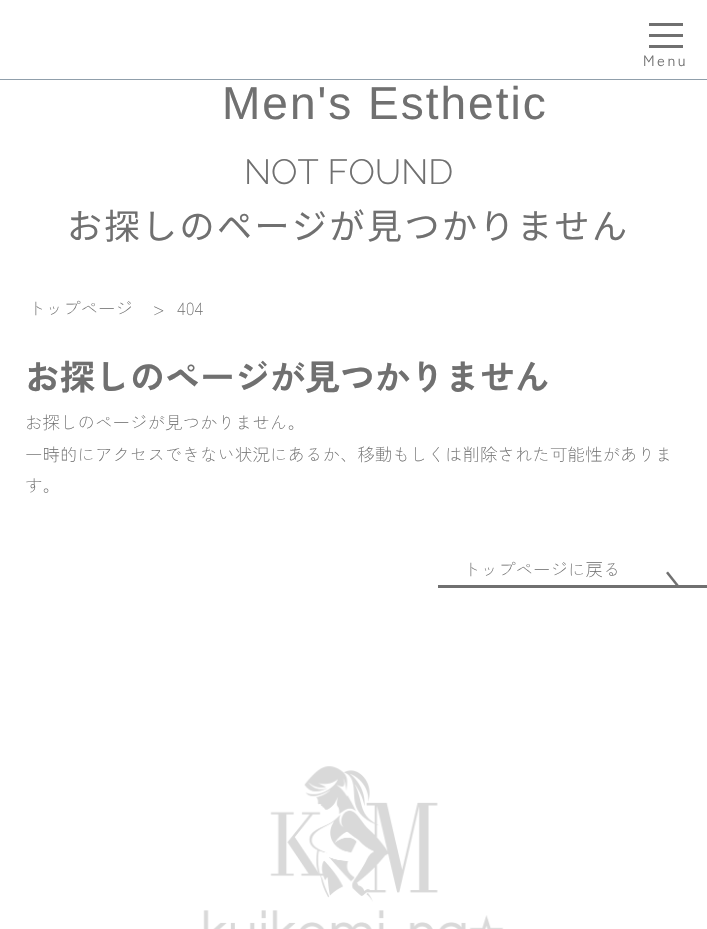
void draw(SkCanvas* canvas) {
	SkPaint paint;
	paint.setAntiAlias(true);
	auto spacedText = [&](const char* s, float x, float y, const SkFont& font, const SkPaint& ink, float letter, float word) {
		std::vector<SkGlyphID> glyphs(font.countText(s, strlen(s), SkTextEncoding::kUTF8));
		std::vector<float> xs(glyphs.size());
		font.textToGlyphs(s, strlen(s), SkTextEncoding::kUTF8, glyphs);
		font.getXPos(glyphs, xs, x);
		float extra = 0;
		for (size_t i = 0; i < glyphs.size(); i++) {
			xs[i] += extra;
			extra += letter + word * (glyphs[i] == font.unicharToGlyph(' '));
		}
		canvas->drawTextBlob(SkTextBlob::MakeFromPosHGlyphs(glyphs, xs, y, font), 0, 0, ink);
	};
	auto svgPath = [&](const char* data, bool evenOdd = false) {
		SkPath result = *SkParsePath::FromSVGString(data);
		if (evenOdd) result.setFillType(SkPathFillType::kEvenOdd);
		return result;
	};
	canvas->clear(0xffffffff);
	paint.setColor(0xff707070);
	canvas->drawRect(SkRect::MakeXYWH(649, 23, 34, 3), paint);
	canvas->drawRect(SkRect::MakeXYWH(649, 34, 34, 3), paint);
	canvas->drawRect(SkRect::MakeXYWH(649, 45, 34, 3), paint);
	SkFont f1(fontMgr->matchFamilyStyle("Zen Kaku Gothic New", SkFontStyle::Normal()), 15);
	f1.setSubpixel(true);
	spacedText("Menu", 643, 66, f1, paint, 2.5, 0);
	paint.setColor(0xff909fab);
	canvas->drawRect(SkRect::MakeXYWH(0, 79, 707, 1), paint);
	SkFont f2(fontMgr->matchFamilyStyle("Liberation Sans", SkFontStyle::Normal()), 46);
	f2.setSubpixel(true);
	paint.setColor(0xff707070);
	spacedText("Men's Esthetic", 222, 119, f2, paint, 2, 0);
	SkFont f3(fontMgr->matchFamilyStyle("Raleway", SkFontStyle(300, SkFontStyle::kNormal_Width, SkFontStyle::kUpright_Slant)), 35);
	f3.setSubpixel(true);
	canvas->drawString("NOT FOUND", 244, 184, f3, paint);
	SkFont f4(fontMgr->matchFamilyStyle("Noto Sans JP", SkFontStyle::Normal()), 35);
	f4.setSubpixel(true);
	spacedText("お探しのページが見つかりません", 67, 239, f4, paint, 2.5, 0);
	SkFont f5(fontMgr->matchFamilyStyle("Zen Kaku Gothic New", SkFontStyle(300, SkFontStyle::kNormal_Width, SkFontStyle::kUpright_Slant)), 17.5);
	f5.setSubpixel(true);
	canvas->drawString("トップページ", 28, 315, f5, paint);
	canvas->drawString(">", 153, 315, f5, paint);
	canvas->drawString("404", 177, 315, f5, paint);
	SkFont f6(fontMgr->matchFamilyStyle("Zen Kaku Gothic New", SkFontStyle::Bold()), 35);
	f6.setSubpixel(true);
	canvas->drawString("お探しのページが見つかりません", 25, 390, f6, paint);
	canvas->drawString("お探しのページが見つかりません。", 25, 429, f5, paint);
	canvas->drawString("一時的にアクセスできない状況にあるか、移動もしくは削除された可能性がありま", 25, 461, f5, paint);
	canvas->drawString("す。", 25, 492, f5, paint);
	canvas->drawString("トップページに戻る", 463, 576, f5, paint);
	canvas->drawPath(svgPath("M668 571.5L679.5 586L677.5 587.5L666 573Z"), paint);
	canvas->drawRect(SkRect::MakeXYWH(438, 585, 269, 3), paint);
	canvas->drawImageRect(SkImages::DeferredFromEncodedData(SkData::MakeFromFileName("img1.png")), SkRect::MakeXYWH(203, 766, 301, 163), SkSamplingOptions());
}
